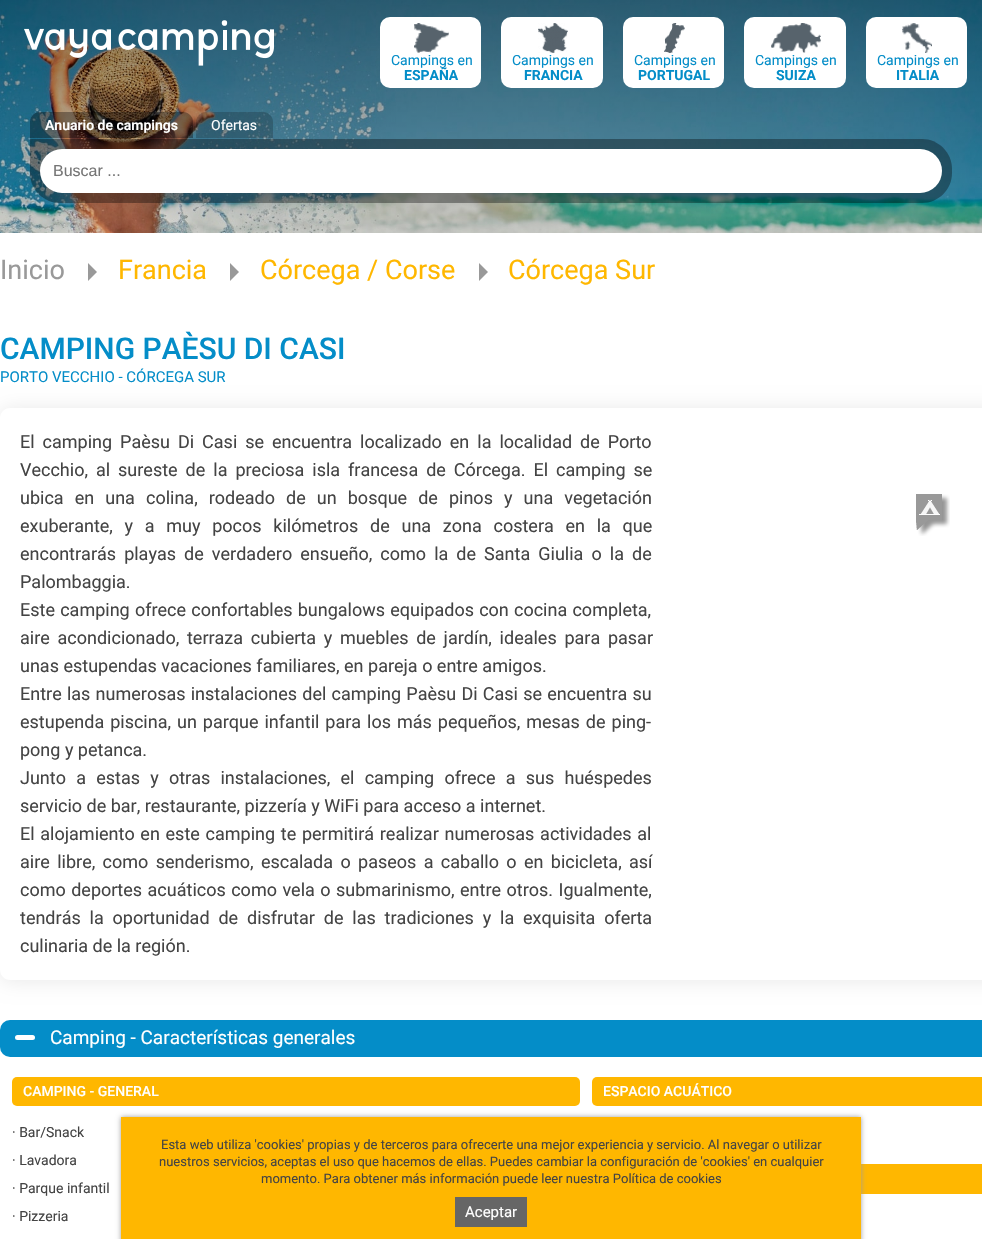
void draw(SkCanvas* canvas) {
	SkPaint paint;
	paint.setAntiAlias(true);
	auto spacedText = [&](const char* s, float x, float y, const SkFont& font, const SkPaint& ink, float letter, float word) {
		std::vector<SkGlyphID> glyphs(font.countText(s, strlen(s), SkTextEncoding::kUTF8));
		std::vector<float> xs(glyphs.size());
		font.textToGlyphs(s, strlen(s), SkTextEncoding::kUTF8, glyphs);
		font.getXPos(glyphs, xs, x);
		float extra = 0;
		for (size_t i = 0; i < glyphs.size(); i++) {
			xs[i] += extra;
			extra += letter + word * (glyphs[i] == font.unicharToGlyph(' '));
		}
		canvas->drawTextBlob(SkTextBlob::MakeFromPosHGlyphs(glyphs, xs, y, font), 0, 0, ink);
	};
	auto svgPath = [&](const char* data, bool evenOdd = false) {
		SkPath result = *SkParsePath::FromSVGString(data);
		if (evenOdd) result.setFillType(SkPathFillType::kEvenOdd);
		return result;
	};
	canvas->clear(0xffffffff);
	canvas->drawImageRect(SkImages::DeferredFromEncodedData(SkData::MakeFromFileName("img1.png")), SkRect::MakeXYWH(0, 0, 982, 233), SkSamplingOptions());
	paint.setColor(0xffffffff);
	canvas->drawRoundRect(SkRect::MakeXYWH(380, 17, 101, 71), 10, 10, paint);
	canvas->drawImageRect(SkImages::DeferredFromEncodedData(SkData::MakeFromFileName("img2.png")), SkRect::MakeXYWH(414, 23, 35, 30), SkSamplingOptions());
	SkFont f1(fontMgr->matchFamilyStyle("Roboto", SkFontStyle::Normal()), 14);
	f1.setSubpixel(true);
	paint.setColor(0xff048dc8);
	canvas->drawString("Campings en", 391, 65, f1, paint);
	SkFont f2(fontMgr->matchFamilyStyle("Roboto", SkFontStyle::Bold()), 14);
	f2.setSubpixel(true);
	canvas->drawString("ESPAÑA", 404, 80, f2, paint);
	paint.setColor(0xffffffff);
	canvas->drawRoundRect(SkRect::MakeXYWH(501, 17, 102, 71), 10, 10, paint);
	canvas->drawImageRect(SkImages::DeferredFromEncodedData(SkData::MakeFromFileName("img3.png")), SkRect::MakeXYWH(538, 23, 30, 30), SkSamplingOptions());
	paint.setColor(0xff048dc8);
	canvas->drawString("Campings en", 512, 65, f1, paint);
	canvas->drawString("FRANCIA", 524, 80, f2, paint);
	paint.setColor(0xffffffff);
	canvas->drawRoundRect(SkRect::MakeXYWH(623, 17, 101, 71), 10, 10, paint);
	canvas->drawImageRect(SkImages::DeferredFromEncodedData(SkData::MakeFromFileName("img4.png")), SkRect::MakeXYWH(664, 23, 21, 30), SkSamplingOptions());
	paint.setColor(0xff048dc8);
	canvas->drawString("Campings en", 634, 65, f1, paint);
	canvas->drawString("PORTUGAL", 638, 80, f2, paint);
	paint.setColor(0xffffffff);
	canvas->drawRoundRect(SkRect::MakeXYWH(744, 17, 102, 71), 10, 10, paint);
	canvas->drawImageRect(SkImages::DeferredFromEncodedData(SkData::MakeFromFileName("img5.png")), SkRect::MakeXYWH(771, 23, 50, 30), SkSamplingOptions());
	paint.setColor(0xff048dc8);
	canvas->drawString("Campings en", 755, 65, f1, paint);
	canvas->drawString("SUIZA", 776, 80, f2, paint);
	paint.setColor(0xffffffff);
	canvas->drawRoundRect(SkRect::MakeXYWH(866, 17, 101, 71), 10, 10, paint);
	canvas->drawImageRect(SkImages::DeferredFromEncodedData(SkData::MakeFromFileName("img6.png")), SkRect::MakeXYWH(902, 23, 30, 30), SkSamplingOptions());
	paint.setColor(0xff048dc8);
	canvas->drawString("Campings en", 877, 65, f1, paint);
	canvas->drawString("ITALIA", 896, 80, f2, paint);
	canvas->drawImageRect(SkImages::DeferredFromEncodedData(SkData::MakeFromFileName("img7.png")), SkRect::MakeXYWH(24, 20, 250, 46), SkSamplingOptions());
	paint.setColor(0x59000000);
	canvas->drawPath(svgPath("M40 112H183C188.5 112 193 116.5 193 122V138H30V122C30 116.5 34.5 112 40 112Z"), paint);
	SkFont f3(fontMgr->matchFamilyStyle("Roboto", SkFontStyle(600, SkFontStyle::kNormal_Width, SkFontStyle::kUpright_Slant)), 14);
	f3.setSubpixel(true);
	paint.setColor(0xffffffff);
	canvas->drawString("Anuario de campings", 45, 130, f3, paint);
	paint.setColor(0x33000000);
	canvas->drawPath(svgPath("M206 112H263C268.5 112 273 116.5 273 122V138H196V122C196 116.5 200.5 112 206 112Z"), paint);
	paint.setColor(0xffffffff);
	canvas->drawString("Ofertas", 211, 130, f1, paint);
	paint.setColor(0x59000000);
	canvas->drawPath(svgPath("M30 139H922C938.5 139 952 152.5 952 169V173C952 189.5 938.5 203 922 203H60C43.5 203 30 189.5 30 173Z"), paint);
	paint.setColor(0xffffffff);
	canvas->drawRoundRect(SkRect::MakeXYWH(40, 149, 902, 44), 22, 22, paint);
	SkFont f4(fontMgr->matchFamilyStyle("Liberation Sans", SkFontStyle::Normal()), 16);
	f4.setSubpixel(true);
	paint.setColor(0xff757575);
	canvas->drawString("Buscar ...", 53, 176, f4, paint);
	SkFont f5(fontMgr->matchFamilyStyle("Roboto", SkFontStyle::Normal()), 27);
	f5.setSubpixel(true);
	paint.setColor(0xff999999);
	canvas->drawString("Inicio", 0, 279, f5, paint);
	canvas->drawPath(svgPath("M88 281V263L97 272Z"), paint);
	paint.setColor(0xffffb700);
	canvas->drawString("Francia", 118, 279, f5, paint);
	paint.setColor(0xff999999);
	canvas->drawPath(svgPath("M230 281V263L239 272Z"), paint);
	paint.setColor(0xffffb700);
	canvas->drawString("Córcega / Corse", 260, 279, f5, paint);
	paint.setColor(0xff999999);
	canvas->drawPath(svgPath("M479 281V263L488 272Z"), paint);
	paint.setColor(0xffffb700);
	canvas->drawString("Córcega Sur", 508, 279, f5, paint);
	SkFont f6(fontMgr->matchFamilyStyle("Roboto", SkFontStyle(500, SkFontStyle::kNormal_Width, SkFontStyle::kUpright_Slant)), 30);
	f6.setSubpixel(true);
	paint.setColor(0xff048dc8);
	canvas->drawString("CAMPING PAÈSU DI CASI", 0, 359, f6, paint);
	SkFont f7(fontMgr->matchFamilyStyle("Roboto", SkFontStyle::Normal()), 15);
	f7.setSubpixel(true);
	canvas->drawString("PORTO VECCHIO - CÓRCEGA SUR", 0, 382, f7, paint);
	canvas->save();
	canvas->clipPath(svgPath("M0 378H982V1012H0ZM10 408H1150C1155.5 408 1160 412.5 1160 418V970C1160 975.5 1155.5 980 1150 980H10C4.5 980 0 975.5 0 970V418C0 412.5 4.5 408 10 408Z", true), true);
	paint.setColor(0x17000000);
	paint.setMaskFilter(SkMaskFilter::MakeBlur(kNormal_SkBlurStyle, 10));
	canvas->drawRoundRect(SkRect::MakeXYWH(0, 409, 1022, 572), 10, 10, paint);
	paint.setMaskFilter(nullptr);
	canvas->restore();
	SkFont f8(fontMgr->matchFamilyStyle("Roboto", SkFontStyle::Normal()), 18);
	f8.setSubpixel(true);
	paint.setColor(0xff444444);
	spacedText("El camping Paèsu Di Casi se encuentra localizado en la localidad de Porto", 20, 448, f8, paint, 0, 3.5);
	spacedText("Vecchio, al sureste de la preciosa isla francesa de Córcega. El camping se", 20, 476, f8, paint, 0, 3.5);
	spacedText("ubica en una colina, rodeado de un bosque de pinos y una vegetación", 20, 504, f8, paint, 0, 6.6);
	spacedText("exuberante, y a muy pocos kilómetros de una zona costera en la que", 20, 532, f8, paint, 0, 7.25);
	spacedText("encontrarás playas de verdadero ensueño, como la de Santa Giulia o la de", 20, 560, f8, paint, 0, 3.6);
	canvas->drawString("Palombaggia.", 20, 588, f8, paint);
	spacedText("Este camping ofrece confortables bungalows equipados con cocina completa,", 20, 616, f8, paint, 0, 0.75);
	spacedText("aire acondicionado, terraza cubierta y muebles de jardín, ideales para pasar", 20, 644, f8, paint, 0, 3.25);
	canvas->drawString("unas estupendas vacaciones familiares, en pareja o entre amigos.", 20, 672, f8, paint);
	spacedText("Entre las numerosas instalaciones del camping Paèsu Di Casi se encuentra su", 20, 700, f8, paint, 0, 0.75);
	spacedText("estupenda piscina, un parque infantil para los más pequeños, mesas de ping-", 20, 728, f8, paint, 0, 1.5);
	canvas->drawString("pong y petanca.", 20, 756, f8, paint);
	spacedText("Junto a estas y otras instalaciones, el camping ofrece a sus huéspedes", 20, 784, f8, paint, 0, 5.75);
	canvas->drawString("servicio de bar, restaurante, pizzería y WiFi para acceso a internet.", 20, 812, f8, paint);
	spacedText("El alojamiento en este camping te permitirá realizar numerosas actividades al", 20, 840, f8, paint, 0, 1.25);
	spacedText("aire libre, como senderismo, escalada o paseos a caballo o en bicicleta, así", 20, 868, f8, paint, 0, 2.9);
	spacedText("como deportes acuáticos como vela o submarinismo, entre otros. Igualmente,", 20, 896, f8, paint, 0, 1);
	spacedText("tendrás la oportunidad de disfrutar de las tradiciones y la exquisita oferta", 20, 924, f8, paint, 0, 4.4);
	canvas->drawString("culinaria de la región.", 20, 952, f8, paint);
	canvas->drawImageRect(SkImages::DeferredFromEncodedData(SkData::MakeFromFileName("img8.png")), SkRect::MakeXYWH(916, 494, 34, 42), SkSamplingOptions());
	paint.setColor(0xff048dc8);
	canvas->drawRoundRect(SkRect::MakeXYWH(0, 1020, 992, 37), 10, 10, paint);
	paint.setColor(0xffffffff);
	canvas->drawRoundRect(SkRect::MakeXYWH(15, 1035, 20, 5), 2.5, 2.5, paint);
	SkFont f9(fontMgr->matchFamilyStyle("Roboto", SkFontStyle::Normal()), 19);
	f9.setSubpixel(true);
	canvas->drawString("Camping - Características generales", 50, 1044, f9, paint);
	paint.setColor(0xffffb700);
	canvas->drawRoundRect(SkRect::MakeXYWH(12, 1077, 568, 29), 5, 5, paint);
	SkFont f10(fontMgr->matchFamilyStyle("Roboto", SkFontStyle(500, SkFontStyle::kNormal_Width, SkFontStyle::kUpright_Slant)), 14);
	f10.setSubpixel(true);
	paint.setColor(0xffffffff);
	canvas->drawString("CAMPING - GENERAL", 23, 1096, f10, paint);
	paint.setColor(0xff444444);
	canvas->drawString("· Bar/Snack", 12, 1137, f1, paint);
	canvas->drawString("· Lavadora", 12, 1165, f1, paint);
	canvas->drawString("· Parque infantil", 12, 1193, f1, paint);
	canvas->drawString("· Pizzeria", 12, 1221, f1, paint);
	paint.setColor(0xffffb700);
	canvas->drawRoundRect(SkRect::MakeXYWH(592, 1077, 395, 29), 5, 5, paint);
	paint.setColor(0xffffffff);
	canvas->drawString("ESPACIO ACUÁTICO", 603, 1096, f10, paint);
	paint.setColor(0xffffb700);
	canvas->drawRect(SkRect::MakeXYWH(861, 1164, 121, 30), paint);
	paint.setColor(0xff9d9d9d);
	paint.setMaskFilter(SkMaskFilter::MakeBlur(kNormal_SkBlurStyle, 2.5));
	canvas->drawRect(SkRect::MakeXYWH(121, 1117, 740, 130), paint);
	paint.setMaskFilter(nullptr);
	paint.setColor(0xffffb700);
	canvas->drawRect(SkRect::MakeXYWH(121, 1117, 740, 122), paint);
	SkFont f11(fontMgr->matchFamilyStyle("Roboto", SkFontStyle::Normal()), 13);
	f11.setSubpixel(true);
	paint.setColor(0xff444444);
	canvas->drawString("Esta web utiliza 'cookies' propias y de terceros para ofrecerte una mejor experiencia y servicio. Al navegar o utilizar", 161, 1149, f11, paint);
	canvas->drawString("nuestros servicios, aceptas el uso que hacemos de ellas. Puedes cambiar la configuración de 'cookies' en cualquier", 159, 1166, f11, paint);
	canvas->drawString("momento. Para obtener más información puede leer nuestra Política de cookies", 261, 1183, f11, paint);
	paint.setColor(0xff666666);
	canvas->drawRect(SkRect::MakeXYWH(455, 1197, 72, 30), paint);
	paint.setColor(0xffffffff);
	canvas->drawString("Aceptar", 465, 1217, f7, paint);
}
